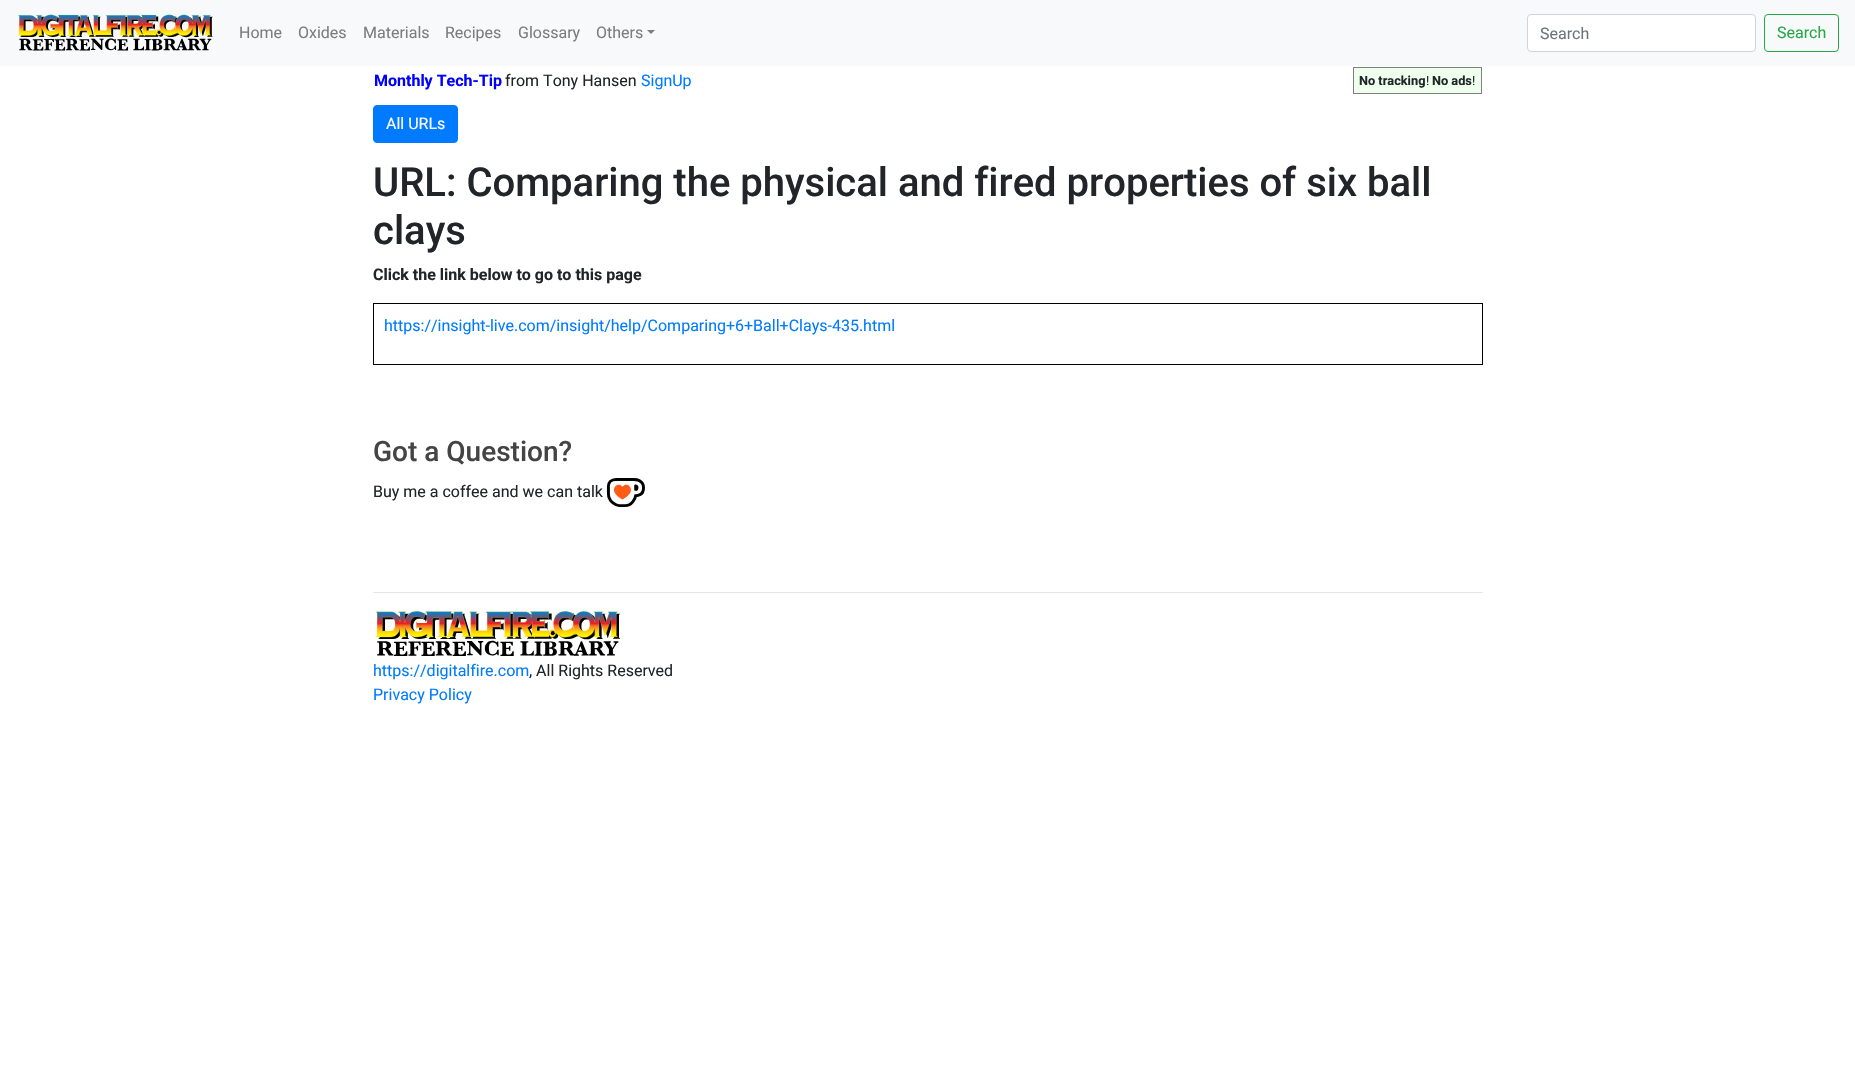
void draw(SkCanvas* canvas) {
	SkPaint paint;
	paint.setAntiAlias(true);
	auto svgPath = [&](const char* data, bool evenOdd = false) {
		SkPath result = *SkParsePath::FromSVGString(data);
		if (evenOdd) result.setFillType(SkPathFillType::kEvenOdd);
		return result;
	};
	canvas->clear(0xffffffff);
	paint.setColor(0xfff8f9fa);
	canvas->drawRect(SkRect::MakeXYWH(0, 0, 1855, 66), paint);
	canvas->drawImageRect(SkImages::DeferredFromEncodedData(SkData::MakeFromFileName("img1.png")), SkRect::MakeXYWH(18, 14, 195, 37), SkSamplingOptions());
	SkFont f1(fontMgr->matchFamilyStyle("Roboto", SkFontStyle::Normal()), 16);
	f1.setSubpixel(true);
	paint.setColor(0xff7c7d7d);
	canvas->drawString("Home", 239, 38, f1, paint);
	canvas->drawString("Oxides", 298, 38, f1, paint);
	canvas->drawString("Materials", 363, 38, f1, paint);
	canvas->drawString("Recipes", 445, 38, f1, paint);
	canvas->drawString("Glossary", 518, 38, f1, paint);
	canvas->drawString("Others", 596, 38, f1, paint);
	canvas->drawPath(svgPath("M647 30H655L651 34Z"), paint);
	paint.setColor(0xffffffff);
	canvas->drawRoundRect(SkRect::MakeXYWH(1527.5, 14.5, 228, 37), 3.5, 3.5, paint);
	paint.setStroke(true);
	paint.setStrokeWidth(1);
	paint.setColor(0xffced4da);
	canvas->drawRoundRect(SkRect::MakeXYWH(1527.5, 14.5, 228, 37), 3.5, 3.5, paint);
	paint.setStroke(false);
	paint.setColor(0xff6c757d);
	canvas->drawString("Search", 1540, 39, f1, paint);
	paint.setStroke(true);
	paint.setColor(0xff28a745);
	canvas->drawRoundRect(SkRect::MakeXYWH(1764.5, 14.5, 74, 37), 3.5, 3.5, paint);
	paint.setStroke(false);
	canvas->drawString("Search", 1777, 38, f1, paint);
	SkFont f2(fontMgr->matchFamilyStyle("Roboto", SkFontStyle::Bold()), 16);
	f2.setSubpixel(true);
	paint.setColor(0xff0000ff);
	canvas->drawString("Monthly Tech-Tip", 374, 86, f2, paint);
	paint.setColor(0xff212529);
	canvas->drawString("from Tony Hansen", 505, 86, f1, paint);
	paint.setColor(0xff007bff);
	canvas->drawString("SignUp", 641, 86, f1, paint);
	paint.setColor(0xffeeffee);
	canvas->drawRect(SkRect::MakeXYWH(1353.5, 67.5, 128, 26), paint);
	paint.setStroke(true);
	paint.setColor(0xff808080);
	canvas->drawRect(SkRect::MakeXYWH(1353.5, 67.5, 128, 26), paint);
	SkFont f3(fontMgr->matchFamilyStyle("Roboto", SkFontStyle::Bold()), 12.75);
	f3.setSubpixel(true);
	paint.setStroke(false);
	paint.setColor(0xff212529);
	canvas->drawString("No tracking", 1359, 85, f3, paint);
	SkFont f4(fontMgr->matchFamilyStyle("Roboto", SkFontStyle::Normal()), 12.75);
	f4.setSubpixel(true);
	canvas->drawString("!", 1426, 85, f4, paint);
	canvas->drawString("No ads", 1432, 85, f3, paint);
	canvas->drawString("!", 1472, 85, f4, paint);
	paint.setColor(0xff007bff);
	canvas->drawRoundRect(SkRect::MakeXYWH(373.5, 105.5, 84, 37), 3.5, 3.5, paint);
	paint.setStroke(true);
	canvas->drawRoundRect(SkRect::MakeXYWH(373.5, 105.5, 84, 37), 3.5, 3.5, paint);
	paint.setStroke(false);
	paint.setColor(0xffffffff);
	canvas->drawString("All URLs", 386, 129, f1, paint);
	SkFont f5(fontMgr->matchFamilyStyle("Roboto", SkFontStyle(500, SkFontStyle::kNormal_Width, SkFontStyle::kUpright_Slant)), 40);
	f5.setSubpixel(true);
	paint.setColor(0xff212529);
	canvas->drawString("URL: Comparing the physical and fired properties of six ball", 373, 196, f5, paint);
	canvas->drawString("clays", 373, 244, f5, paint);
	canvas->drawString("Click the link below to go to this page", 373, 280, f2, paint);
	paint.setStroke(true);
	paint.setColor(0xff000000);
	canvas->drawRect(SkRect::MakeXYWH(373.5, 303.5, 1109, 61), paint);
	paint.setStroke(false);
	paint.setColor(0xff007bff);
	canvas->drawString("https://insight-live.com/insight/help/Comparing+6+Ball+Clays-435.html", 384, 331, f1, paint);
	SkFont f6(fontMgr->matchFamilyStyle("Roboto", SkFontStyle(500, SkFontStyle::kNormal_Width, SkFontStyle::kUpright_Slant)), 28);
	f6.setSubpixel(true);
	paint.setColor(0xff444444);
	canvas->drawString("Got a Question?", 373, 461, f6, paint);
	paint.setColor(0xff212529);
	canvas->drawString("Buy me a coffee and we can talk", 373, 497, f1, paint);
	canvas->drawImageRect(SkImages::DeferredFromEncodedData(SkData::MakeFromFileName("img2.png")), SkRect::MakeXYWH(606, 478, 39, 29), SkSamplingOptions());
	paint.setColor(0xffe6e6e6);
	canvas->drawRect(SkRect::MakeXYWH(373, 592, 1110, 1), paint);
	canvas->drawImageRect(SkImages::DeferredFromEncodedData(SkData::MakeFromFileName("img3.png")), SkRect::MakeXYWH(375, 610, 245, 46), SkSamplingOptions());
	paint.setColor(0xff007bff);
	canvas->drawString("https://digitalfire.com", 373, 676, f1, paint);
	paint.setColor(0xff212529);
	canvas->drawString(", All Rights Reserved", 529, 676, f1, paint);
	paint.setColor(0xff007bff);
	canvas->drawString("Privacy Policy", 373, 700, f1, paint);
}
